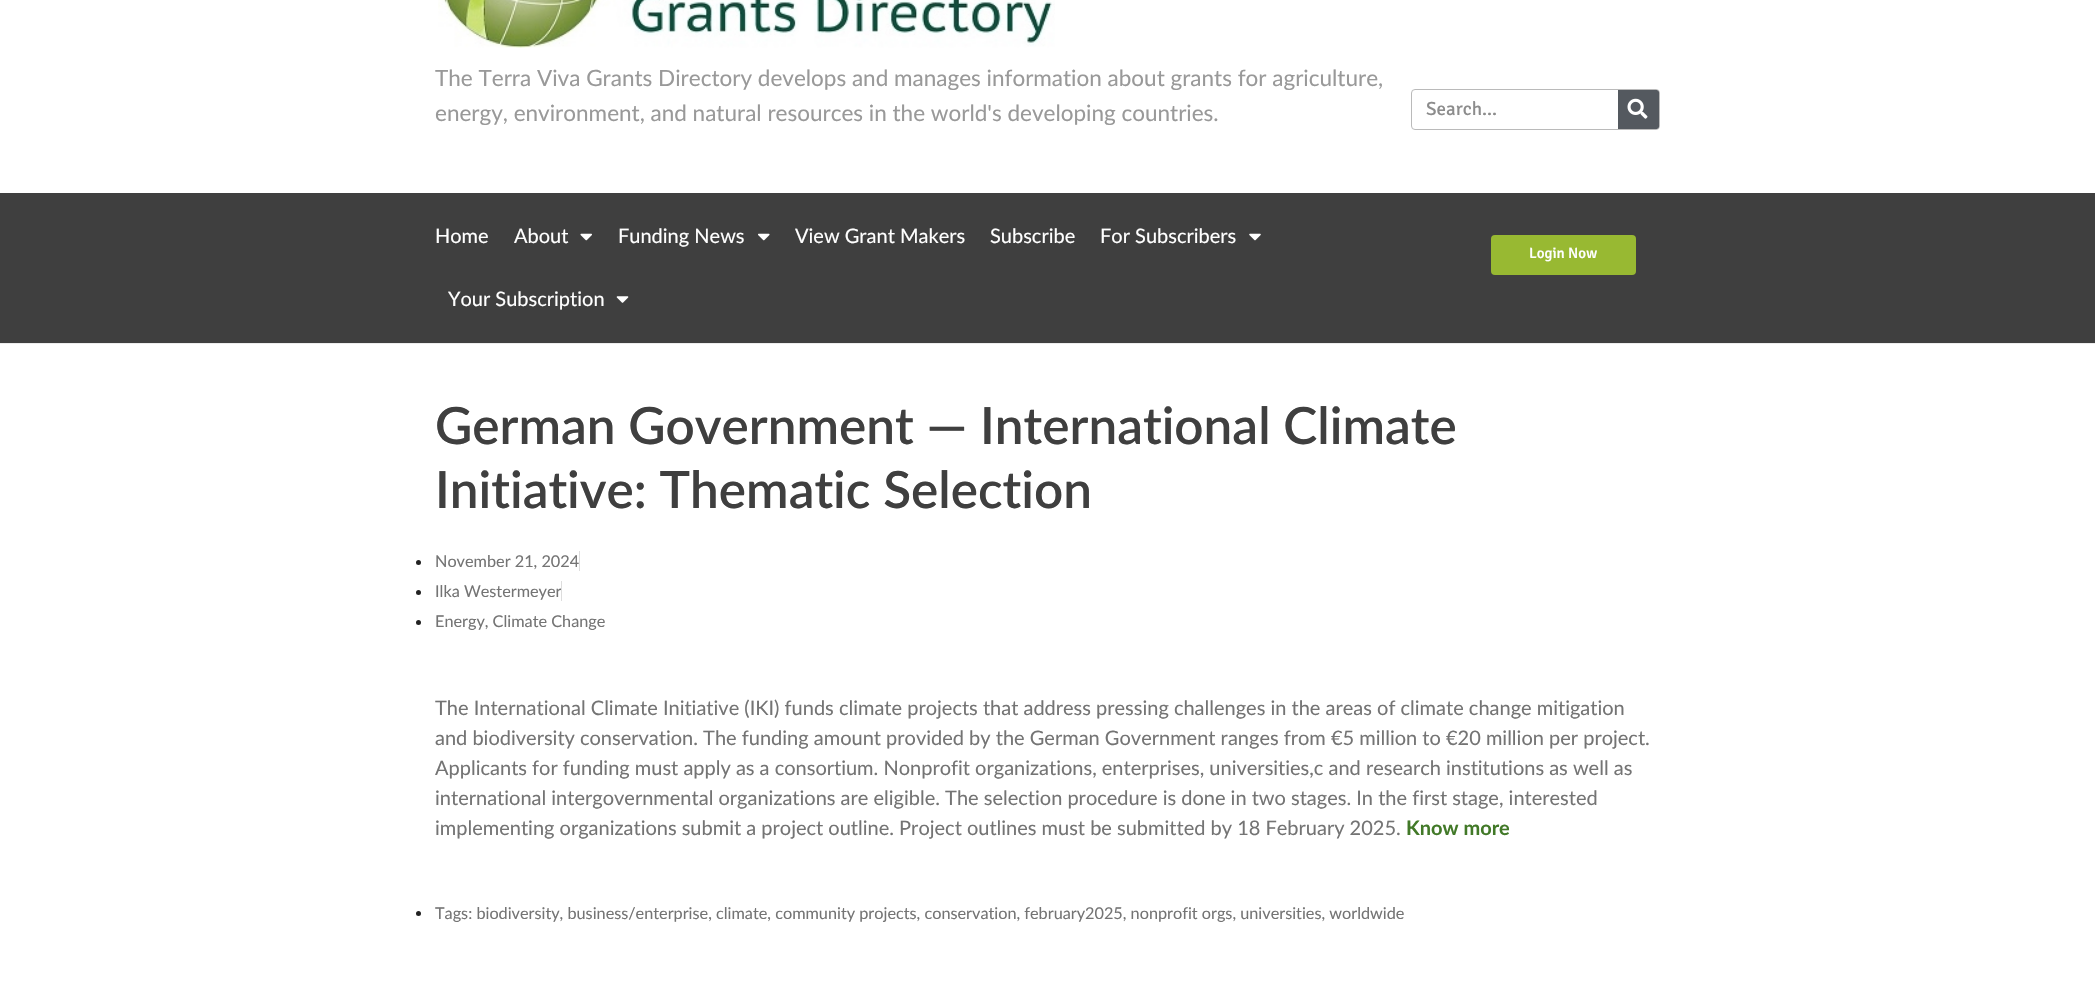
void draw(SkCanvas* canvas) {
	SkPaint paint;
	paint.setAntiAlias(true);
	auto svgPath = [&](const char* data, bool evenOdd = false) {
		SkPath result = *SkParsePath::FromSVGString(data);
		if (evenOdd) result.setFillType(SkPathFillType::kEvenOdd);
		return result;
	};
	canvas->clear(0xffffffff);
	canvas->drawImageRect(SkImages::DeferredFromEncodedData(SkData::MakeFromFileName("img1.png")), SkRect::MakeXYWH(438, 0, 617, 48), SkSamplingOptions());
	SkFont f1(fontMgr->matchFamilyStyle("Lato", SkFontStyle::Normal()), 22.5);
	f1.setSubpixel(true);
	paint.setColor(0xff999999);
	canvas->drawString("The Terra Viva Grants Directory develops and manages information about grants for agriculture,", 435, 86, f1, paint);
	canvas->drawString("energy, environment, and natural resources in the world's developing countries.", 435, 121, f1, paint);
	paint.setStroke(true);
	paint.setStrokeWidth(1);
	paint.setColor(0xffbababa);
	canvas->drawRoundRect(SkRect::MakeXYWH(1411.5, 89.5, 248, 40), 3.5, 3.5, paint);
	SkFont f2(fontMgr->matchFamilyStyle("Signika", SkFontStyle::Normal()), 19);
	f2.setSubpixel(true);
	paint.setStroke(false);
	paint.setColor(0xff8c8c8c);
	canvas->drawString("Search...", 1426, 115, f2, paint);
	paint.setColor(0xff54595f);
	canvas->drawPath(svgPath("M1618 90H1656.5C1658 90 1659 91 1659 92.5V126.5C1659 128 1658 129 1656.5 129H1618Z"), paint);
	canvas->drawImageRect(SkImages::DeferredFromEncodedData(SkData::MakeFromFileName("img2.png")), SkRect::MakeXYWH(1627, 98, 21, 21), SkSamplingOptions());
	paint.setColor(0xff3f3f3f);
	canvas->drawRect(SkRect::MakeXYWH(0, 193, 2095, 150), paint);
	SkFont f3(fontMgr->matchFamilyStyle("Lato", SkFontStyle::Normal()), 20);
	f3.setSubpixel(true);
	paint.setColor(0xffffffff);
	canvas->drawString("Home", 435, 243, f3, paint);
	canvas->drawString("About", 514, 243, f3, paint);
	canvas->drawImageRect(SkImages::DeferredFromEncodedData(SkData::MakeFromFileName("img3.png")), SkRect::MakeXYWH(580, 233, 12, 8), SkSamplingOptions());
	canvas->drawString("Funding News", 618, 243, f3, paint);
	canvas->drawImageRect(SkImages::DeferredFromEncodedData(SkData::MakeFromFileName("img4.png")), SkRect::MakeXYWH(758, 233, 12, 8), SkSamplingOptions());
	canvas->drawString("View Grant Makers", 795, 243, f3, paint);
	canvas->drawString("Subscribe", 990, 243, f3, paint);
	canvas->drawString("For Subscribers", 1100, 243, f3, paint);
	canvas->drawImageRect(SkImages::DeferredFromEncodedData(SkData::MakeFromFileName("img5.png")), SkRect::MakeXYWH(1249, 233, 12, 8), SkSamplingOptions());
	canvas->drawString("Your Subscription", 448, 306, f3, paint);
	canvas->drawImageRect(SkImages::DeferredFromEncodedData(SkData::MakeFromFileName("img6.png")), SkRect::MakeXYWH(616, 296, 13, 7), SkSamplingOptions());
	paint.setColor(0xff98b932);
	canvas->drawRoundRect(SkRect::MakeXYWH(1491, 235, 145, 40), 4, 4, paint);
	SkFont f4(fontMgr->matchFamilyStyle("Signika", SkFontStyle(500, SkFontStyle::kNormal_Width, SkFontStyle::kUpright_Slant)), 15);
	f4.setSubpixel(true);
	paint.setColor(0xffffffff);
	canvas->drawString("Login Now", 1529, 258, f4, paint);
	paint.setColor(0xffececec);
	canvas->drawRect(SkRect::MakeXYWH(0, 343, 2095, 1), paint);
	SkFont f5(fontMgr->matchFamilyStyle("Lato", SkFontStyle(600, SkFontStyle::kNormal_Width, SkFontStyle::kUpright_Slant)), 51.25);
	f5.setSubpixel(true);
	paint.setColor(0xff3f3f3f);
	canvas->drawString("German Government — International Climate", 435, 444, f5, paint);
	canvas->drawString("Initiative: Thematic Selection", 435, 508, f5, paint);
	paint.setColor(0xff222222);
	canvas->drawCircle(418.5, 562.5, 2.5, paint);
	SkFont f6(fontMgr->matchFamilyStyle("Lato", SkFontStyle::Normal()), 16.25);
	f6.setSubpixel(true);
	paint.setColor(0xff747474);
	canvas->drawString("November 21, 2024", 435, 567, f6, paint);
	paint.setColor(0xffdddddd);
	canvas->drawRect(SkRect::MakeXYWH(579, 551, 1, 20), paint);
	paint.setColor(0xff747474);
	canvas->drawString("Ilka Westermeyer", 435, 597, f6, paint);
	paint.setColor(0xffdddddd);
	canvas->drawRect(SkRect::MakeXYWH(561, 581, 1, 20), paint);
	paint.setColor(0xff222222);
	canvas->drawCircle(418.5, 592.5, 2.5, paint);
	canvas->drawCircle(418.5, 622.5, 2.5, paint);
	paint.setColor(0xff747474);
	canvas->drawString("Energy, Climate Change", 435, 627, f6, paint);
	canvas->drawString("The International Climate Initiative (IKI) funds climate projects that address pressing challenges in the areas of climate change mitigation", 435, 715, f3, paint);
	canvas->drawString("and biodiversity conservation. The funding amount provided by the German Government ranges from €5 million to €20 million per project.", 435, 745, f3, paint);
	canvas->drawString("Applicants for funding must apply as a consortium. Nonprofit organizations, enterprises, universities,c and research institutions as well as", 435, 775, f3, paint);
	canvas->drawString("international intergovernmental organizations are eligible. The selection procedure is done in two stages. In the first stage, interested", 435, 805, f3, paint);
	canvas->drawString("implementing organizations submit a project outline. Project outlines must be submitted by 18 February 2025.", 435, 835, f3, paint);
	SkFont f7(fontMgr->matchFamilyStyle("Lato", SkFontStyle::Bold()), 20);
	f7.setSubpixel(true);
	paint.setColor(0xff427928);
	canvas->drawString("Know more", 1406, 835, f7, paint);
	paint.setColor(0xff222222);
	canvas->drawCircle(418.5, 913.5, 2.5, paint);
	paint.setColor(0xff747474);
	canvas->drawString("Tags: biodiversity, business/enterprise, climate, community projects, conservation, february2025, nonprofit orgs, universities, worldwide", 435, 919, f6, paint);
}
